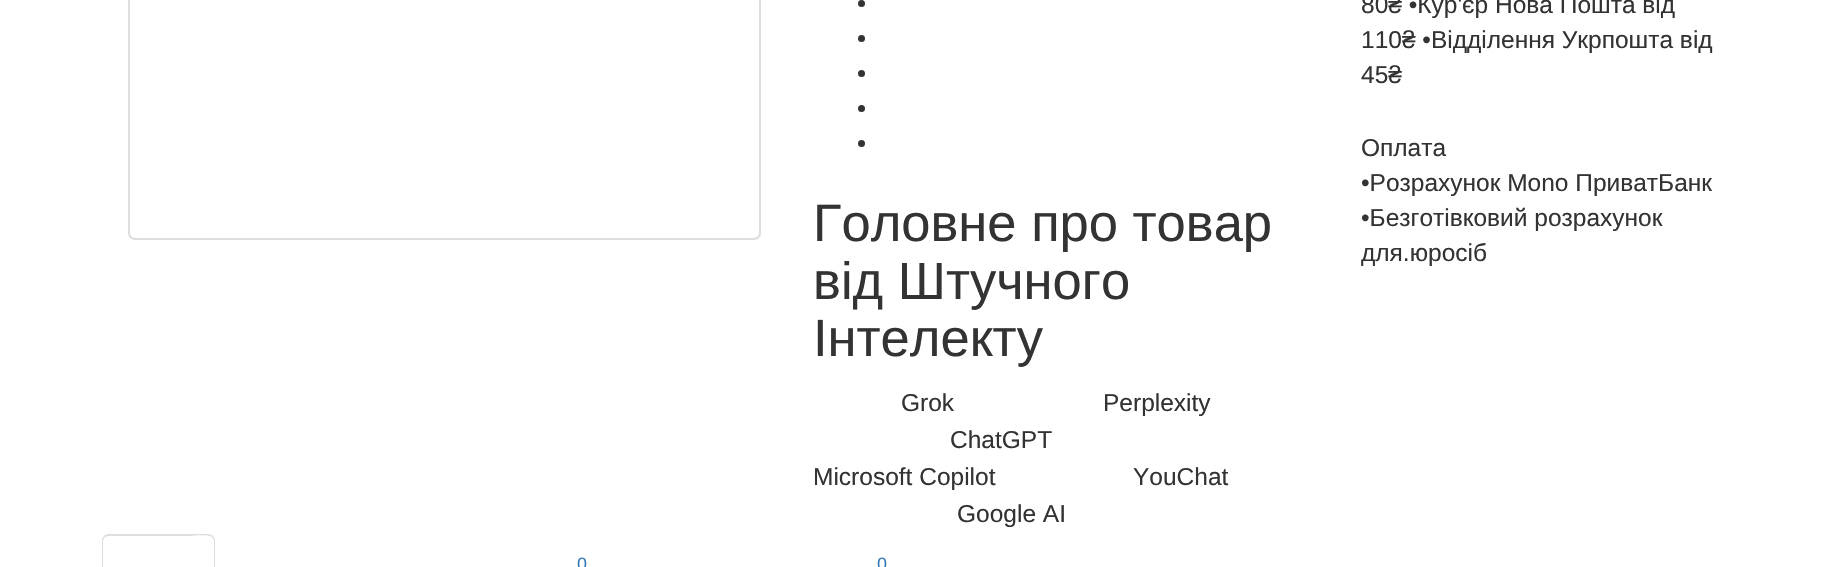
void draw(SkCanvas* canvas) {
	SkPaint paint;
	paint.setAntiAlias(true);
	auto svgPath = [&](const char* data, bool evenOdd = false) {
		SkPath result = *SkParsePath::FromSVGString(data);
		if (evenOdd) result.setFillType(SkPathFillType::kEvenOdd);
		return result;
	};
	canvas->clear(0xffffffff);
	paint.setStroke(true);
	paint.setStrokeWidth(2);
	paint.setColor(0xffdddddd);
	canvas->drawRoundRect(SkRect::MakeXYWH(129, -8, 631, 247), 6, 6, paint);
	SkFont f1(fontMgr->matchFamilyStyle("Liberation Sans", SkFontStyle::Normal()), 24.5);
	f1.setSubpixel(true);
	paint.setStroke(false);
	paint.setColor(0xff333333);
	canvas->drawString("80₴ •Кур'єр Нова Пошта від", 1361, 13, f1, paint);
	canvas->drawString("110₴ •Відділення Укрпошта від", 1361, 48, f1, paint);
	canvas->drawString("45₴", 1361, 83, f1, paint);
	canvas->drawString("Оплата", 1361, 156, f1, paint);
	canvas->drawString("•Розрахунок Mono ПриватБанк", 1361, 191, f1, paint);
	canvas->drawString("•Безготівковий розрахунок", 1361, 226, f1, paint);
	canvas->drawString("для.юросіб", 1361, 261, f1, paint);
	canvas->drawCircle(861.5, 3.5, 3.5, paint);
	canvas->drawCircle(861.5, 38.5, 3.5, paint);
	canvas->drawCircle(861.5, 73.5, 3.5, paint);
	canvas->drawCircle(861.5, 108.5, 3.5, paint);
	canvas->drawCircle(861.5, 143.5, 3.5, paint);
	SkFont f2(fontMgr->matchFamilyStyle("Liberation Sans", SkFontStyle::Normal()), 52.5);
	f2.setSubpixel(true);
	canvas->drawString("Головне про товар", 813, 241, f2, paint);
	canvas->drawString("від Штучного", 813, 299, f2, paint);
	canvas->drawString("Інтелекту", 813, 356, f2, paint);
	canvas->drawString("Grok", 901, 411, f1, paint);
	canvas->drawString("Perplexity", 1103, 411, f1, paint);
	canvas->drawString("ChatGPT", 950, 448, f1, paint);
	canvas->drawString("Microsoft Copilot", 813, 485, f1, paint);
	canvas->drawString("YouChat", 1133, 485, f1, paint);
	canvas->drawString("Google AI", 957, 522, f1, paint);
	paint.setColor(0xffdddddd);
	canvas->drawPath(svgPath("M108 534C106 534 105 535 104 536L105 537L108 536H191C192 536 207 534 212 537L213 536C212 535 210 534 208 534Z"), paint);
	canvas->drawPath(svgPath("M215 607V541C215 539 214 537 213 536L212 537L214 540V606Z"), paint);
	canvas->drawPath(svgPath("M104 536C103 537 102 539 102 541V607L103 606V540L105 537Z"), paint);
	SkFont f3(fontMgr->matchFamilyStyle("Liberation Sans", SkFontStyle::Normal()), 18);
	f3.setSubpixel(true);
	paint.setColor(0xff337ab7);
	canvas->drawString("0", 577, 570, f3, paint);
	canvas->drawString("0", 877, 570, f3, paint);
}
